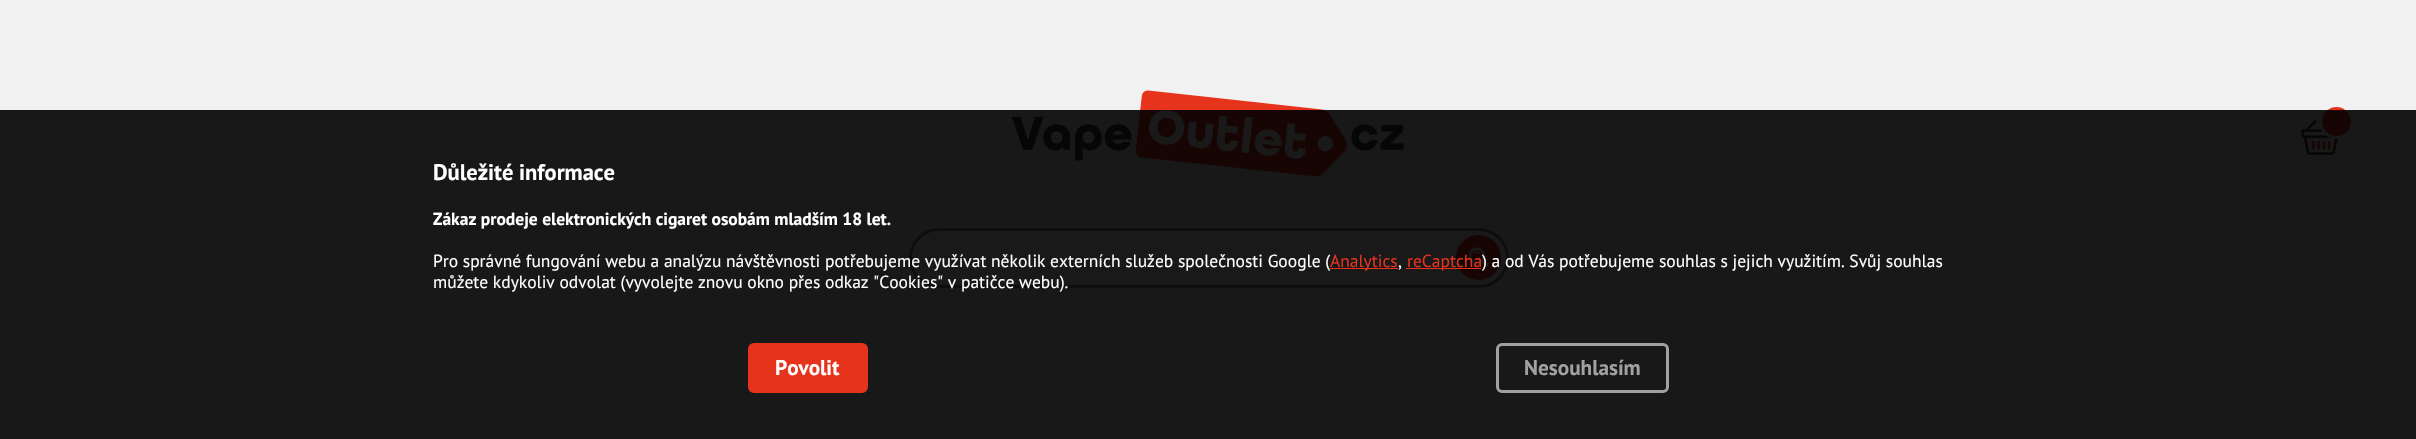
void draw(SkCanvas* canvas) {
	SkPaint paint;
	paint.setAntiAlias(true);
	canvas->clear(0xfff1f1f1);
	canvas->drawImageRect(SkImages::DeferredFromEncodedData(SkData::MakeFromFileName("img1.png")), SkRect::MakeXYWH(1011, 90, 393, 87), SkSamplingOptions());
	canvas->drawImageRect(SkImages::DeferredFromEncodedData(SkData::MakeFromFileName("img2.png")), SkRect::MakeXYWH(2301, 120, 37, 35), SkSamplingOptions());
	paint.setColor(0xffe6331c);
	canvas->drawCircle(2336.5, 121.5, 16, paint);
	paint.setStroke(true);
	paint.setStrokeWidth(3);
	paint.setColor(0xfff1f1f1);
	canvas->drawCircle(2336.5, 121.5, 16, paint);
	paint.setStroke(false);
	paint.setColor(0xffffffff);
	canvas->drawRoundRect(SkRect::MakeXYWH(910.5, 229.5, 597, 57), 28.5, 28.5, paint);
	paint.setStroke(true);
	paint.setColor(0xff7c7c7c);
	canvas->drawRoundRect(SkRect::MakeXYWH(910.5, 229.5, 597, 57), 28.5, 28.5, paint);
	paint.setStroke(false);
	paint.setColor(0xffe6331c);
	canvas->drawCircle(1478.5, 257.5, 22.5, paint);
	canvas->drawImageRect(SkImages::DeferredFromEncodedData(SkData::MakeFromFileName("img3.png")), SkRect::MakeXYWH(1468, 247, 21, 21), SkSamplingOptions());
	paint.setColor(0xe6000000);
	canvas->drawRect(SkRect::MakeXYWH(0, 110, 2416, 329), paint);
	SkFont f1(fontMgr->matchFamilyStyle("PT Sans", SkFontStyle::Bold()), 22.5);
	f1.setSubpixel(true);
	paint.setColor(0xffffffff);
	canvas->drawString("Důležité informace", 433, 180, f1, paint);
	SkFont f2(fontMgr->matchFamilyStyle("PT Sans", SkFontStyle::Bold()), 17.5);
	f2.setSubpixel(true);
	canvas->drawString("Zákaz prodeje elektronických cigaret osobám mladším 18 let.", 433, 225, f2, paint);
	SkFont f3(fontMgr->matchFamilyStyle("PT Sans", SkFontStyle::Normal()), 17.5);
	f3.setSubpixel(true);
	canvas->drawString("Pro správné fungování webu a analýzu návštěvnosti potřebujeme využívat několik externích služeb společnosti Google (", 433, 267, f3, paint);
	paint.setColor(0xffe6331c);
	canvas->drawRect(SkRect::MakeXYWH(1330, 268, 68, 1), paint);
	canvas->drawString("Analytics", 1330, 267, f3, paint);
	paint.setColor(0xffffffff);
	canvas->drawString(",", 1398, 267, f3, paint);
	paint.setColor(0xffe6331c);
	canvas->drawRect(SkRect::MakeXYWH(1406, 268, 75, 1), paint);
	canvas->drawString("reCaptcha", 1407, 267, f3, paint);
	paint.setColor(0xffffffff);
	canvas->drawString(") a od Vás potřebujeme souhlas s jejich využitím. Svůj souhlas", 1482, 267, f3, paint);
	canvas->drawString("můžete kdykoliv odvolat (vyvolejte znovu okno přes odkaz \"Cookies\" v patičce webu).", 433, 288, f3, paint);
	paint.setColor(0xffe6331c);
	canvas->drawRoundRect(SkRect::MakeXYWH(749.5, 344.5, 117, 47), 4.5, 4.5, paint);
	paint.setStroke(true);
	canvas->drawRoundRect(SkRect::MakeXYWH(749.5, 344.5, 117, 47), 4.5, 4.5, paint);
	SkFont f4(fontMgr->matchFamilyStyle("PT Sans", SkFontStyle::Bold()), 21.25);
	f4.setSubpixel(true);
	paint.setStroke(false);
	paint.setColor(0xffffffff);
	canvas->drawString("Povolit", 775, 375, f4, paint);
	paint.setStroke(true);
	paint.setColor(0xffa1a1a1);
	canvas->drawRoundRect(SkRect::MakeXYWH(1497.5, 344.5, 170, 47), 4.5, 4.5, paint);
	paint.setStroke(false);
	canvas->drawString("Nesouhlasím", 1524, 375, f4, paint);
}
